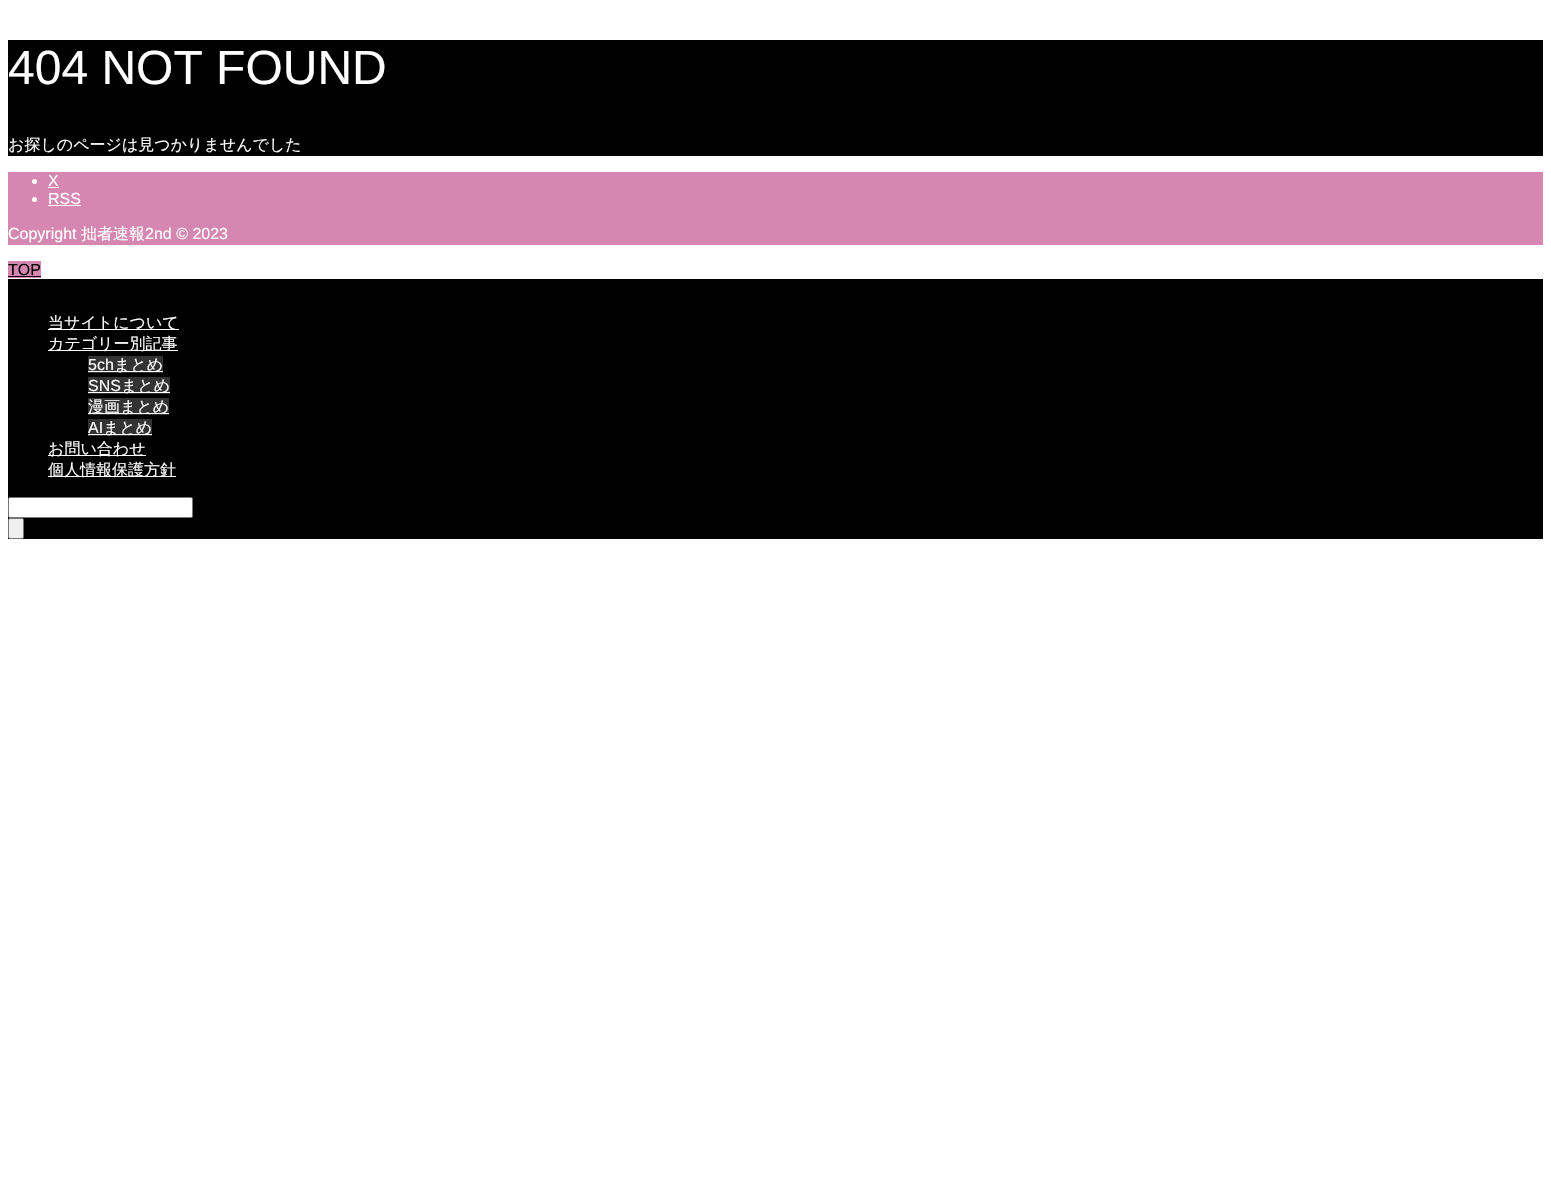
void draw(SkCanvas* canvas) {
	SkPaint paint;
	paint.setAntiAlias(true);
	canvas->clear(0xffffffff);
	paint.setColor(0xff000000);
	canvas->drawRect(SkRect::MakeXYWH(8, 40, 1535, 116), paint);
	SkFont f1(fontMgr->matchFamilyStyle("Liberation Sans", SkFontStyle::Normal()), 48);
	f1.setSubpixel(true);
	paint.setColor(0xffffffff);
	canvas->drawString("404 NOT FOUND", 8, 84, f1, paint);
	SkFont f2(fontMgr->matchFamilyStyle("WenQuanYi Zen Hei", SkFontStyle(500, SkFontStyle::kNormal_Width, SkFontStyle::kUpright_Slant)), 16);
	f2.setSubpixel(true);
	canvas->drawString("お探しのページは見つかりませんでした", 8, 150, f2, paint);
	paint.setColor(0xffd587b1);
	canvas->drawRect(SkRect::MakeXYWH(8, 172, 1535, 73), paint);
	paint.setColor(0xffffffff);
	canvas->drawCircle(34.5, 181.5, 2.5, paint);
	SkFont f3(fontMgr->matchFamilyStyle("Liberation Sans", SkFontStyle::Normal()), 16);
	f3.setSubpixel(true);
	canvas->drawString("X", 48, 186, f3, paint);
	canvas->drawRect(SkRect::MakeXYWH(48, 187, 11, 1), paint);
	canvas->drawCircle(34.5, 199.5, 2.5, paint);
	canvas->drawString("RSS", 48, 204, f3, paint);
	canvas->drawRect(SkRect::MakeXYWH(48, 205, 33, 1), paint);
	canvas->drawString("Copyright", 8, 239, f3, paint);
	canvas->drawString("拙者速報", 81, 239, f2, paint);
	canvas->drawString("2nd © 2023", 145, 239, f3, paint);
	paint.setColor(0xffd587b1);
	canvas->drawRect(SkRect::MakeXYWH(8, 261, 33, 17), paint);
	paint.setColor(0xff000000);
	canvas->drawString("TOP", 8, 275, f3, paint);
	canvas->drawRect(SkRect::MakeXYWH(8, 276, 33, 1), paint);
	canvas->drawRect(SkRect::MakeXYWH(8, 279, 1535, 260), paint);
	paint.setColor(0xffffffff);
	canvas->drawRect(SkRect::MakeXYWH(48, 329, 131, 1), paint);
	canvas->drawString("当サイトについて", 48, 328, f2, paint);
	canvas->drawRect(SkRect::MakeXYWH(48, 350, 130, 1), paint);
	canvas->drawString("カテゴリー別記事", 48, 349, f2, paint);
	paint.setColor(0xff333333);
	canvas->drawRect(SkRect::MakeXYWH(88, 356, 75, 17), paint);
	paint.setColor(0xffffffff);
	canvas->drawString("5ch", 88, 370, f3, paint);
	canvas->drawRect(SkRect::MakeXYWH(88, 371, 75, 1), paint);
	canvas->drawString("まとめ", 114, 370, f2, paint);
	paint.setColor(0xff333333);
	canvas->drawRect(SkRect::MakeXYWH(88, 377, 82, 17), paint);
	paint.setColor(0xffffffff);
	canvas->drawString("SNS", 88, 391, f3, paint);
	canvas->drawRect(SkRect::MakeXYWH(88, 392, 82, 1), paint);
	canvas->drawString("まとめ", 121, 391, f2, paint);
	paint.setColor(0xff333333);
	canvas->drawRect(SkRect::MakeXYWH(88, 398, 81, 17), paint);
	paint.setColor(0xffffffff);
	canvas->drawRect(SkRect::MakeXYWH(88, 413, 81, 1), paint);
	canvas->drawString("漫画まとめ", 88, 412, f2, paint);
	paint.setColor(0xff333333);
	canvas->drawRect(SkRect::MakeXYWH(88, 419, 64, 17), paint);
	paint.setColor(0xffffffff);
	canvas->drawString("AI", 88, 433, f3, paint);
	canvas->drawRect(SkRect::MakeXYWH(88, 434, 64, 1), paint);
	canvas->drawString("まとめ", 103, 433, f2, paint);
	canvas->drawRect(SkRect::MakeXYWH(48, 455, 98, 1), paint);
	canvas->drawString("お問い合わせ", 48, 454, f2, paint);
	canvas->drawRect(SkRect::MakeXYWH(48, 476, 128, 1), paint);
	canvas->drawString("個人情報保護方針", 48, 475, f2, paint);
	canvas->drawRoundRect(SkRect::MakeXYWH(8.5, 497.5, 184, 20), 1.5, 1.5, paint);
	paint.setStroke(true);
	paint.setStrokeWidth(1);
	paint.setColor(0xff767676);
	canvas->drawRoundRect(SkRect::MakeXYWH(8.5, 497.5, 184, 20), 1.5, 1.5, paint);
	paint.setStroke(false);
	paint.setColor(0xffefefef);
	canvas->drawRoundRect(SkRect::MakeXYWH(8.5, 518.5, 15, 20), 1.5, 1.5, paint);
	paint.setStroke(true);
	paint.setColor(0xff767676);
	canvas->drawRoundRect(SkRect::MakeXYWH(8.5, 518.5, 15, 20), 1.5, 1.5, paint);
}
